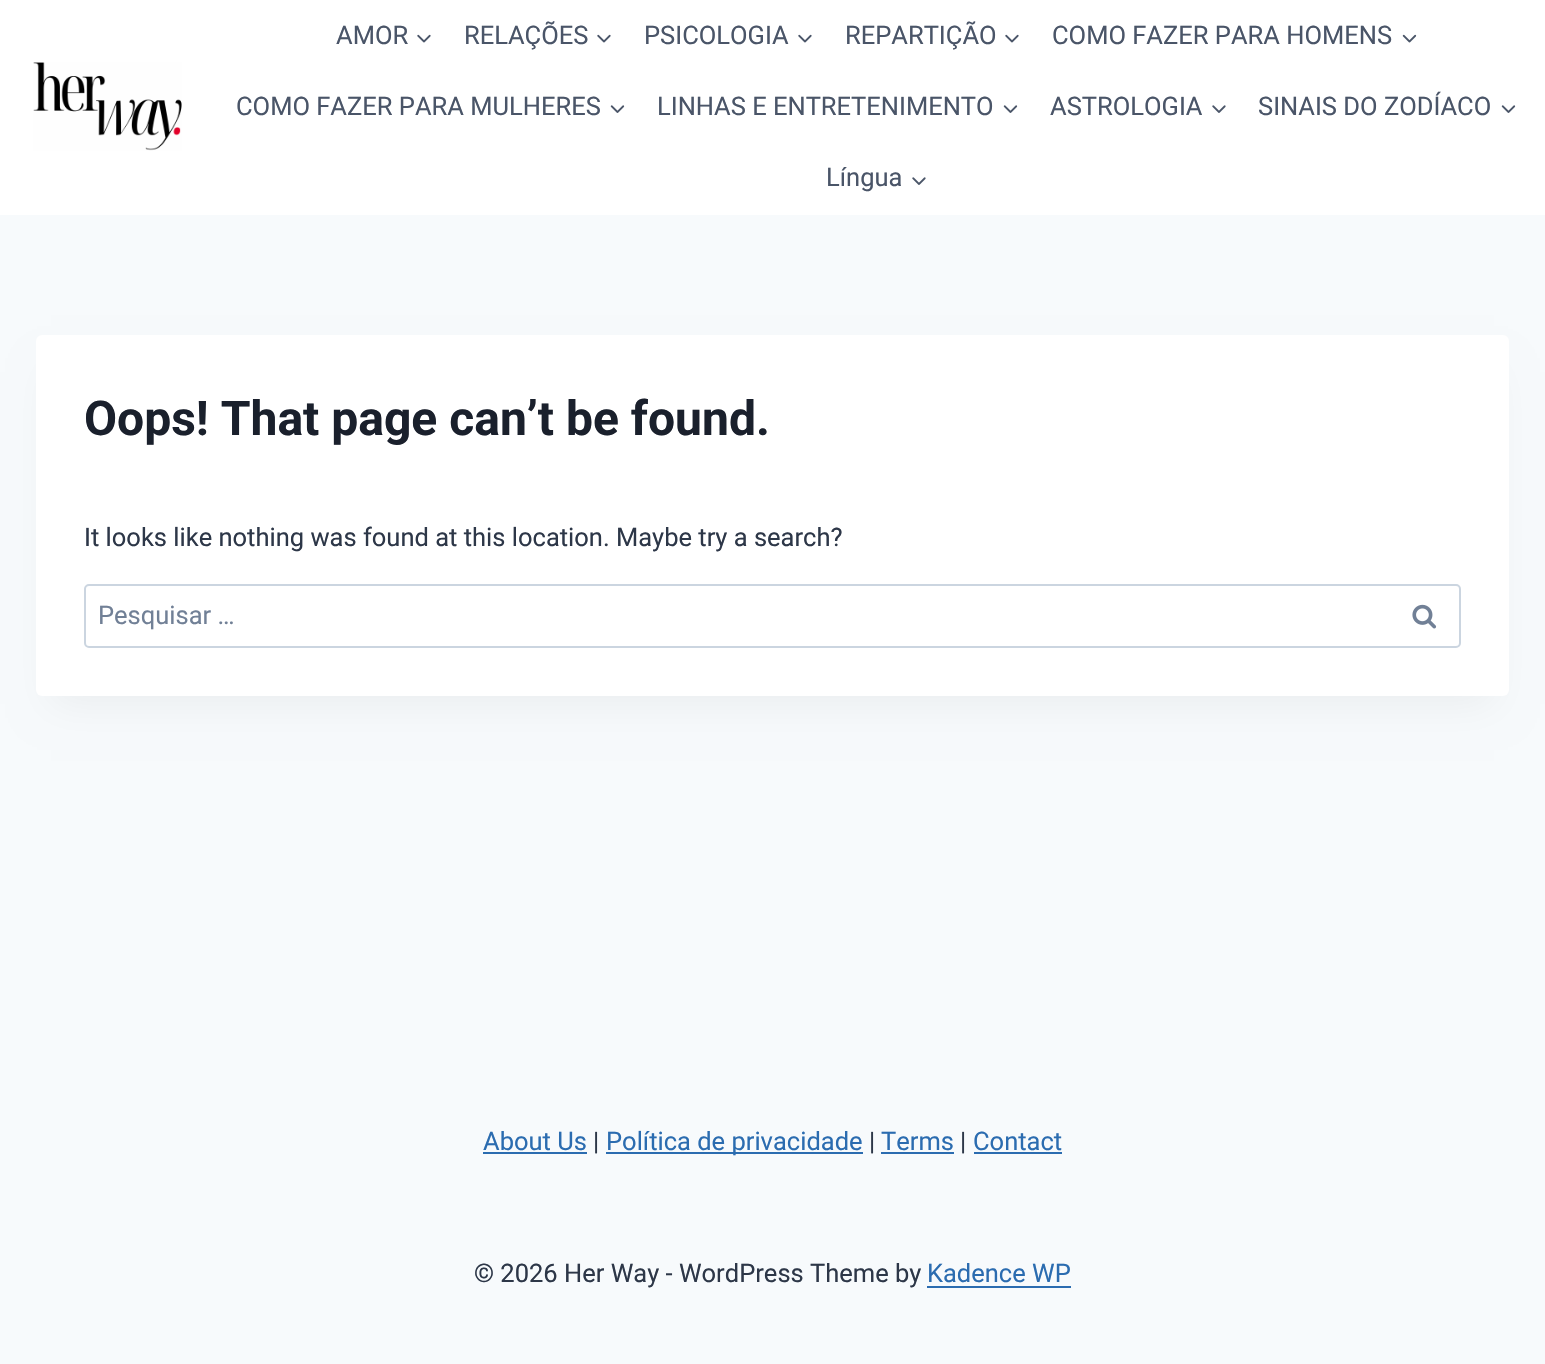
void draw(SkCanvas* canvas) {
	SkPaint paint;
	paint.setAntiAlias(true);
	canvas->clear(0xfff7fafc);
	paint.setColor(0xffffffff);
	canvas->drawRect(SkRect::MakeXYWH(0, 0, 1545, 215), paint);
	canvas->drawImageRect(SkImages::DeferredFromEncodedData(SkData::MakeFromFileName("img1.png")), SkRect::MakeXYWH(33, 62, 149, 89), SkSamplingOptions());
	SkFont f1(fontMgr->matchFamilyStyle("Roboto", SkFontStyle::Normal()), 25.5);
	f1.setSubpixel(true);
	paint.setColor(0xff4a5568);
	canvas->drawString("AMOR", 336, 44, f1, paint);
	canvas->drawImageRect(SkImages::DeferredFromEncodedData(SkData::MakeFromFileName("img2.png")), SkRect::MakeXYWH(417, 34, 14, 9), SkSamplingOptions());
	canvas->drawString("RELAÇÕES", 464, 44, f1, paint);
	canvas->drawImageRect(SkImages::DeferredFromEncodedData(SkData::MakeFromFileName("img2.png")), SkRect::MakeXYWH(597, 34, 14, 9), SkSamplingOptions());
	canvas->drawString("PSICOLOGIA", 644, 44, f1, paint);
	canvas->drawImageRect(SkImages::DeferredFromEncodedData(SkData::MakeFromFileName("img2.png")), SkRect::MakeXYWH(798, 34, 14, 9), SkSamplingOptions());
	canvas->drawString("REPARTIÇÃO", 845, 44, f1, paint);
	canvas->drawImageRect(SkImages::DeferredFromEncodedData(SkData::MakeFromFileName("img2.png")), SkRect::MakeXYWH(1005, 34, 14, 9), SkSamplingOptions());
	canvas->drawString("COMO FAZER PARA HOMENS", 1052, 44, f1, paint);
	canvas->drawImageRect(SkImages::DeferredFromEncodedData(SkData::MakeFromFileName("img3.png")), SkRect::MakeXYWH(1402, 34, 15, 9), SkSamplingOptions());
	canvas->drawString("COMO FAZER PARA MULHERES", 236, 115, f1, paint);
	canvas->drawImageRect(SkImages::DeferredFromEncodedData(SkData::MakeFromFileName("img4.png")), SkRect::MakeXYWH(610, 105, 15, 8), SkSamplingOptions());
	canvas->drawString("LINHAS E ENTRETENIMENTO", 657, 115, f1, paint);
	canvas->drawImageRect(SkImages::DeferredFromEncodedData(SkData::MakeFromFileName("img4.png")), SkRect::MakeXYWH(1003, 105, 15, 8), SkSamplingOptions());
	canvas->drawString("ASTROLOGIA", 1050, 115, f1, paint);
	canvas->drawImageRect(SkImages::DeferredFromEncodedData(SkData::MakeFromFileName("img5.png")), SkRect::MakeXYWH(1212, 105, 14, 8), SkSamplingOptions());
	canvas->drawString("SINAIS DO ZODÍACO", 1258, 115, f1, paint);
	canvas->drawImageRect(SkImages::DeferredFromEncodedData(SkData::MakeFromFileName("img4.png")), SkRect::MakeXYWH(1501, 105, 15, 8), SkSamplingOptions());
	canvas->drawString("Língua", 826, 186, f1, paint);
	canvas->drawImageRect(SkImages::DeferredFromEncodedData(SkData::MakeFromFileName("img5.png")), SkRect::MakeXYWH(912, 177, 14, 8), SkSamplingOptions());
	paint.setColor(0x0d000000);
	paint.setMaskFilter(SkMaskFilter::MakeBlur(kNormal_SkBlurStyle, 19));
	canvas->drawRect(SkRect::MakeXYWH(51, 372, 1443, 332), paint);
	paint.setMaskFilter(nullptr);
	paint.setColor(0xffffffff);
	canvas->drawRoundRect(SkRect::MakeXYWH(36, 335, 1473, 361), 6, 6, paint);
	SkFont f2(fontMgr->matchFamilyStyle("Roboto", SkFontStyle::Bold()), 48);
	f2.setSubpixel(true);
	paint.setColor(0xff1a202c);
	canvas->drawString("Oops! That page can’t be found.", 84, 435, f2, paint);
	paint.setColor(0xff2d3748);
	canvas->drawString("It looks like nothing was found at this location. Maybe try a search?", 84, 546, f1, paint);
	paint.setStroke(true);
	paint.setStrokeWidth(2);
	paint.setColor(0xffcbd5e0);
	canvas->drawRoundRect(SkRect::MakeXYWH(85, 585, 1375, 62), 4, 4, paint);
	paint.setStroke(false);
	paint.setColor(0xff718096);
	canvas->drawString("Pesquisar …", 98, 624, f1, paint);
	canvas->drawImageRect(SkImages::DeferredFromEncodedData(SkData::MakeFromFileName("img6.png")), SkRect::MakeXYWH(1412, 604, 25, 25), SkSamplingOptions());
	paint.setColor(0xff2b6cb0);
	canvas->drawString("About Us", 483, 1150, f1, paint);
	canvas->drawRect(SkRect::MakeXYWH(483, 1152, 104, 2), paint);
	paint.setColor(0xff2d3748);
	canvas->drawString("|", 593, 1150, f1, paint);
	paint.setColor(0xff2b6cb0);
	canvas->drawRect(SkRect::MakeXYWH(606, 1152, 257, 2), paint);
	canvas->drawString("Política de privacidade", 606, 1150, f1, paint);
	paint.setColor(0xff2d3748);
	canvas->drawString("|", 869, 1150, f1, paint);
	paint.setColor(0xff2b6cb0);
	canvas->drawString("Terms", 881, 1150, f1, paint);
	canvas->drawRect(SkRect::MakeXYWH(881, 1152, 73, 2), paint);
	paint.setColor(0xff2d3748);
	canvas->drawString("|", 960, 1150, f1, paint);
	paint.setColor(0xff2b6cb0);
	canvas->drawString("Contact", 973, 1150, f1, paint);
	canvas->drawRect(SkRect::MakeXYWH(974, 1152, 88, 2), paint);
	paint.setColor(0xff2d3748);
	canvas->drawString("© 2026 Her Way - WordPress Theme by", 474, 1282, f1, paint);
	paint.setColor(0xff2b6cb0);
	canvas->drawString("Kadence WP", 927, 1282, f1, paint);
	canvas->drawRect(SkRect::MakeXYWH(927, 1286, 144, 2), paint);
}
